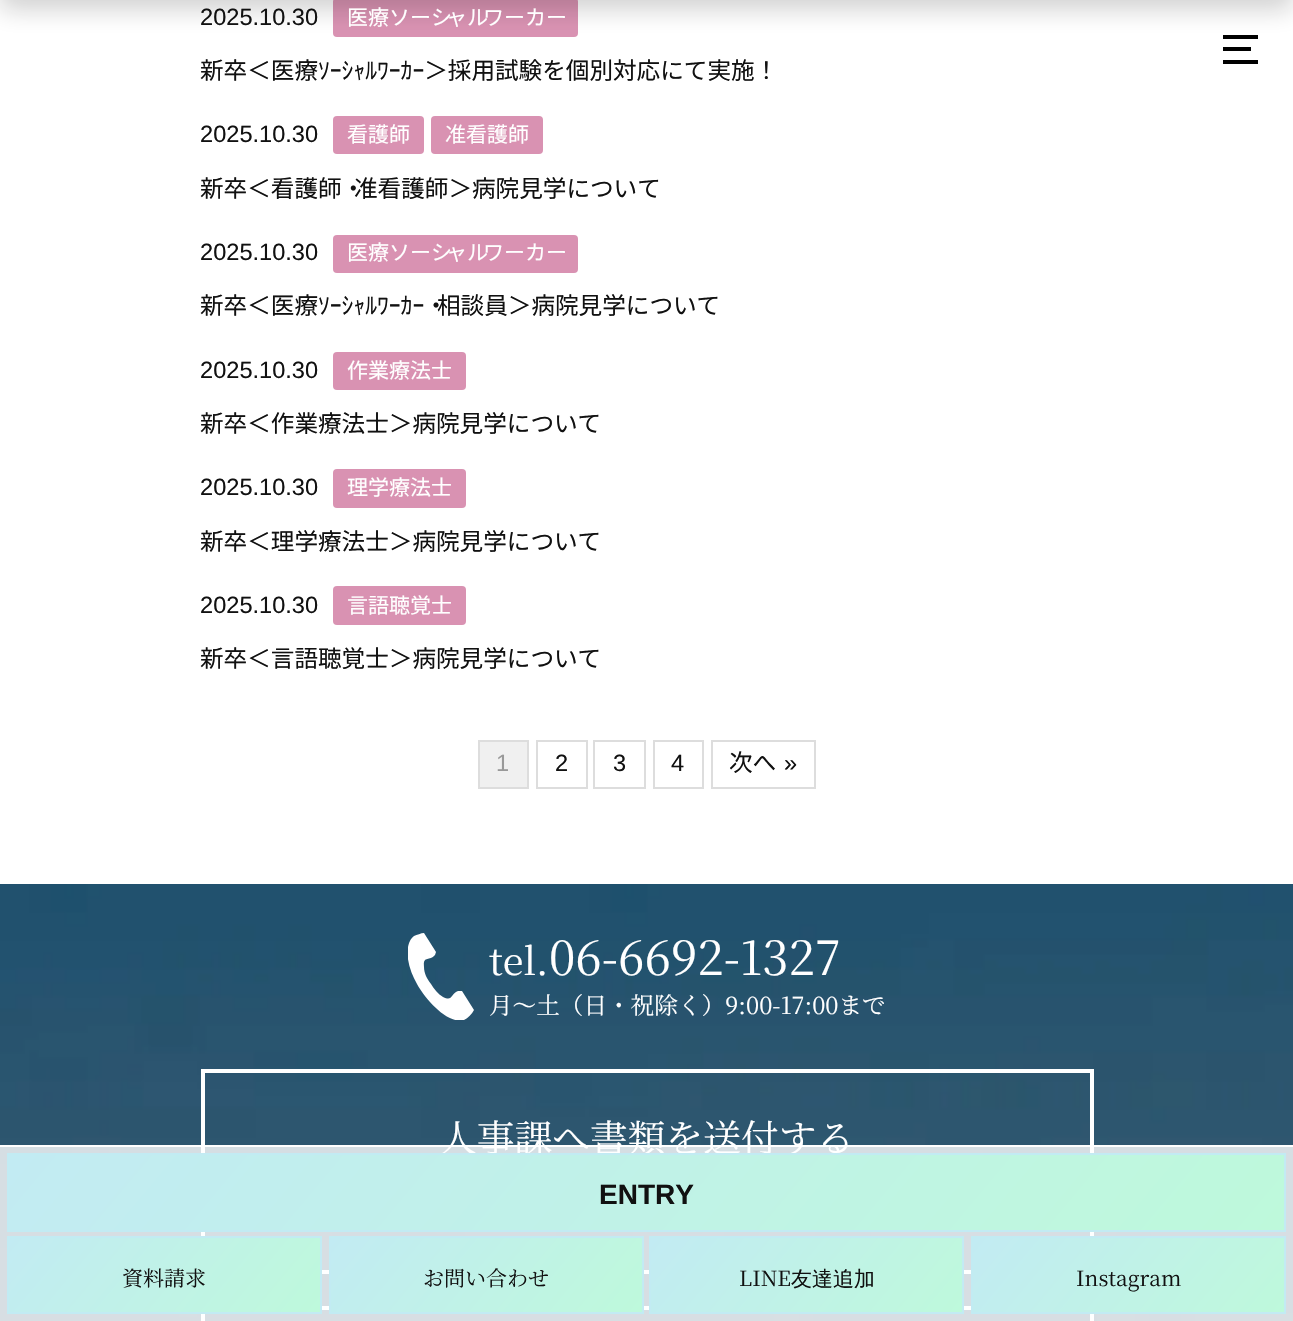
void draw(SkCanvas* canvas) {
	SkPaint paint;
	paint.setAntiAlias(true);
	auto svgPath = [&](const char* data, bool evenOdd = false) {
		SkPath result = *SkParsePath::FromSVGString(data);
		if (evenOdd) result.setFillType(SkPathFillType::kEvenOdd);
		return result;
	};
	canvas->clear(0xffffffff);
	paint.setColor(0xffd992b2);
	canvas->drawRoundRect(SkRect::MakeXYWH(333, -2, 245, 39), 4, 4, paint);
	paint.setColor(0x33111111);
	paint.setMaskFilter(SkMaskFilter::MakeBlur(kNormal_SkBlurStyle, 13));
	canvas->drawRect(SkRect::MakeXYWH(0, -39, 1293, 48), paint);
	paint.setMaskFilter(nullptr);
	SkFont f1(fontMgr->matchFamilyStyle("Liberation Sans", SkFontStyle::Normal()), 23.6);
	f1.setSubpixel(true);
	paint.setColor(0xff111111);
	canvas->drawString("2025.10.30", 200, 25, f1, paint);
	SkFont f2(fontMgr->matchFamilyStyle("Noto Sans JP", SkFontStyle::Normal()), 21);
	f2.setSubpixel(true);
	paint.setColor(0xffffffff);
	canvas->drawString("医療ソーシ", 347, 25, f2, paint);
	canvas->drawString("ャル", 446, 25, f2, paint);
	canvas->drawString("ワーカー", 483, 25, f2, paint);
	SkFont f3(fontMgr->matchFamilyStyle("Noto Sans JP", SkFontStyle::Normal()), 23.6);
	f3.setSubpixel(true);
	paint.setColor(0xff111111);
	canvas->drawString("新卒＜医療ｿｰｼｬﾙﾜｰｶｰ＞採用試験を個別対応にて実施！", 200, 79, f3, paint);
	canvas->drawString("2025.10.30", 200, 142, f1, paint);
	paint.setColor(0xffd992b2);
	canvas->drawRoundRect(SkRect::MakeXYWH(333, 116, 91, 38), 4, 4, paint);
	paint.setColor(0xffffffff);
	canvas->drawString("看護師", 347, 142, f2, paint);
	paint.setColor(0xffd992b2);
	canvas->drawRoundRect(SkRect::MakeXYWH(431, 116, 112, 38), 4, 4, paint);
	paint.setColor(0xffffffff);
	canvas->drawString("准看護師", 445, 142, f2, paint);
	paint.setColor(0xff111111);
	canvas->drawString("新卒＜看護師・", 200, 197, f3, paint);
	canvas->drawString("准看護師＞病院見学について", 354, 197, f3, paint);
	canvas->drawString("2025.10.30", 200, 260, f1, paint);
	paint.setColor(0xffd992b2);
	canvas->drawRoundRect(SkRect::MakeXYWH(333, 235, 245, 38), 4, 4, paint);
	paint.setColor(0xffffffff);
	canvas->drawString("医療ソーシ", 347, 260, f2, paint);
	canvas->drawString("ャル", 446, 260, f2, paint);
	canvas->drawString("ワーカー", 483, 260, f2, paint);
	paint.setColor(0xff111111);
	canvas->drawString("新卒＜医療ｿｰｼｬﾙﾜｰｶｰ・", 200, 314, f3, paint);
	canvas->drawString("相談員＞病院見学について", 437, 314, f3, paint);
	canvas->drawString("2025.10.30", 200, 378, f1, paint);
	paint.setColor(0xffd992b2);
	canvas->drawRoundRect(SkRect::MakeXYWH(333, 352, 133, 38), 4, 4, paint);
	paint.setColor(0xffffffff);
	canvas->drawString("作業療法士", 347, 378, f2, paint);
	paint.setColor(0xff111111);
	canvas->drawString("新卒＜作業療法士＞病院見学について", 200, 432, f3, paint);
	canvas->drawString("2025.10.30", 200, 495, f1, paint);
	paint.setColor(0xffd992b2);
	canvas->drawRoundRect(SkRect::MakeXYWH(333, 469, 133, 39), 4, 4, paint);
	paint.setColor(0xffffffff);
	canvas->drawString("理学療法士", 347, 495, f2, paint);
	paint.setColor(0xff111111);
	canvas->drawString("新卒＜理学療法士＞病院見学について", 200, 550, f3, paint);
	canvas->drawString("2025.10.30", 200, 613, f1, paint);
	paint.setColor(0xffd992b2);
	canvas->drawRoundRect(SkRect::MakeXYWH(333, 586, 133, 39), 4, 4, paint);
	paint.setColor(0xffffffff);
	canvas->drawString("言語聴覚士", 347, 613, f2, paint);
	paint.setColor(0xff111111);
	canvas->drawString("新卒＜言語聴覚士＞病院見学について", 200, 667, f3, paint);
	paint.setColor(0xfff0f0f0);
	canvas->drawRect(SkRect::MakeXYWH(479, 741, 49, 47), paint);
	paint.setStroke(true);
	paint.setStrokeWidth(2);
	paint.setColor(0xffdddddd);
	canvas->drawRect(SkRect::MakeXYWH(479, 741, 49, 47), paint);
	paint.setStroke(false);
	paint.setColor(0xff999999);
	canvas->drawString("1", 496, 771, f1, paint);
	paint.setStroke(true);
	paint.setColor(0xffdddddd);
	canvas->drawRect(SkRect::MakeXYWH(537, 741, 50, 47), paint);
	paint.setStroke(false);
	paint.setColor(0xff111111);
	canvas->drawString("2", 555, 771, f1, paint);
	paint.setStroke(true);
	paint.setColor(0xffdddddd);
	canvas->drawRect(SkRect::MakeXYWH(594, 741, 51, 47), paint);
	paint.setStroke(false);
	paint.setColor(0xff111111);
	canvas->drawString("3", 613, 771, f1, paint);
	paint.setStroke(true);
	paint.setColor(0xffdddddd);
	canvas->drawRect(SkRect::MakeXYWH(654, 741, 49, 47), paint);
	paint.setStroke(false);
	paint.setColor(0xff111111);
	canvas->drawString("4", 671, 771, f1, paint);
	paint.setStroke(true);
	paint.setColor(0xffdddddd);
	canvas->drawRect(SkRect::MakeXYWH(712, 741, 103, 47), paint);
	paint.setStroke(false);
	paint.setColor(0xff111111);
	canvas->drawString("次へ", 729, 771, f3, paint);
	canvas->drawString("»", 784, 771, f1, paint);
	paint.setColor(0xff000000);
	canvas->drawRect(SkRect::MakeXYWH(1223, 47, 28, 4), paint);
	canvas->drawRect(SkRect::MakeXYWH(1223, 35, 35, 4), paint);
	canvas->drawRect(SkRect::MakeXYWH(1223, 60, 35, 4), paint);
	canvas->drawImageRect(SkImages::DeferredFromEncodedData(SkData::MakeFromFileName("img1.png")), SkRect::MakeXYWH(0, 884, 1293, 437), SkSamplingOptions());
	canvas->save();
	canvas->clipRect(SkRect::MakeXYWH(408, 933, 66, 87));
	paint.setColor(0xffffffff);
	canvas->drawPath(svgPath("M414 936C410 939 409 943 408 947C406 960 411 973 417 984C424 997 447 1025 464 1020C468 1018 472 1014 474 1010L462 991H458C450 994 453 1002 443 997C438 994 434 989 431 984C427 979 424 973 424 967C423 955 429 962 435 955L436 952L424 933C421 933 417 935 414 936Z", true), paint);
	canvas->restore();
	SkFont f4(fontMgr->matchFamilyStyle("Noto Serif JP", SkFontStyle::Normal()), 37.75);
	f4.setSubpixel(true);
	canvas->drawString("tel.", 489, 975, f4, paint);
	SkFont f5(fontMgr->matchFamilyStyle("Noto Serif JP", SkFontStyle::Normal()), 47.25);
	f5.setSubpixel(true);
	canvas->drawString("06-6692-1327", 549, 975, f5, paint);
	SkFont f6(fontMgr->matchFamilyStyle("Noto Serif JP", SkFontStyle::Normal()), 23.6);
	f6.setSubpixel(true);
	canvas->drawString("月〜土（日・祝除く）9:00-17:00まで", 489, 1014, f6, paint);
	paint.setStroke(true);
	paint.setStrokeWidth(4);
	canvas->drawRect(SkRect::MakeXYWH(203, 1071, 889, 201), paint);
	paint.setStroke(false);
	canvas->drawString("人事課へ書類を送付する", 439, 1152, f4, paint);
	paint.setStroke(true);
	canvas->drawRect(SkRect::MakeXYWH(203, 1308, 889, 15), paint);
	paint.setStroke(false);
	paint.setColor(0xccffffff);
	canvas->drawRect(SkRect::MakeXYWH(0, 1147, 1293, 174), paint);
	paint.setColor(0xffffffff);
	canvas->drawRect(SkRect::MakeXYWH(0, 1145, 1293, 2), paint);
	{
		const SkColor colors[] = {0xffc2ebf3, 0xffbef9db};
		const float stops[] = {0, 1};
		const SkPoint ends[] = {{254, 863}, {1039, 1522}};
		paint.setShader(SkGradientShader::MakeLinear(ends, colors, stops, 2, SkTileMode::kClamp));
		paint.setAlpha(255);
	}
	canvas->drawRect(SkRect::MakeXYWH(9, 1155, 1275, 75), paint);
	paint.setStroke(true);
	paint.setStrokeWidth(2);
	paint.setShader(nullptr);
	paint.setColor(0xffc2ebf3);
	canvas->drawRect(SkRect::MakeXYWH(8, 1154, 1277, 77), paint);
	SkFont f7(fontMgr->matchFamilyStyle("Liberation Sans", SkFontStyle::Bold()), 28);
	f7.setSubpixel(true);
	paint.setStroke(false);
	paint.setColor(0xff111111);
	canvas->drawString("ENTRY", 599, 1204, f7, paint);
	{
		const SkColor colors[] = {0xffc2ebf3, 0xffbef9db};
		const float stops[] = {0, 1};
		const SkPoint ends[] = {{55, 1183}, {274, 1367}};
		paint.setShader(SkGradientShader::MakeLinear(ends, colors, stops, 2, SkTileMode::kClamp));
		paint.setAlpha(255);
	}
	canvas->drawRect(SkRect::MakeXYWH(9, 1238, 311, 74), paint);
	paint.setStroke(true);
	paint.setShader(nullptr);
	paint.setColor(0xffc2ebf3);
	canvas->drawRect(SkRect::MakeXYWH(8, 1237, 313, 76), paint);
	SkFont f8(fontMgr->matchFamilyStyle("Noto Serif JP", SkFontStyle::Normal()), 21);
	f8.setSubpixel(true);
	paint.setStroke(false);
	paint.setColor(0xff111111);
	canvas->drawString("資料請求", 122, 1286, f8, paint);
	{
		const SkColor colors[] = {0xffc2ebf3, 0xffbef9db};
		const float stops[] = {0, 1};
		const SkPoint ends[] = {{377, 1183}, {596, 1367}};
		paint.setShader(SkGradientShader::MakeLinear(ends, colors, stops, 2, SkTileMode::kClamp));
		paint.setAlpha(255);
	}
	canvas->drawRect(SkRect::MakeXYWH(331, 1238, 311, 74), paint);
	paint.setStroke(true);
	paint.setShader(nullptr);
	paint.setColor(0xffc2ebf3);
	canvas->drawRect(SkRect::MakeXYWH(330, 1237, 313, 76), paint);
	paint.setStroke(false);
	paint.setColor(0xff111111);
	canvas->drawString("お問い合わせ", 423, 1286, f8, paint);
	{
		const SkColor colors[] = {0xffc2ebf3, 0xffbef9db};
		const float stops[] = {0, 1};
		const SkPoint ends[] = {{697, 1183}, {917, 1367}};
		paint.setShader(SkGradientShader::MakeLinear(ends, colors, stops, 2, SkTileMode::kClamp));
		paint.setAlpha(255);
	}
	canvas->drawRect(SkRect::MakeXYWH(651, 1238, 311, 74), paint);
	paint.setStroke(true);
	paint.setShader(nullptr);
	paint.setColor(0xffc2ebf3);
	canvas->drawRect(SkRect::MakeXYWH(650, 1237, 313, 76), paint);
	paint.setStroke(false);
	paint.setColor(0xff111111);
	canvas->drawString("LINE", 739, 1286, f8, paint);
	SkFont f9(fontMgr->matchFamilyStyle("WenQuanYi Zen Hei", SkFontStyle(500, SkFontStyle::kNormal_Width, SkFontStyle::kUpright_Slant)), 21);
	f9.setSubpixel(true);
	canvas->drawString("友達追加", 791, 1286, f9, paint);
	{
		const SkColor colors[] = {0xffc2ebf3, 0xffbef9db};
		const float stops[] = {0, 1};
		const SkPoint ends[] = {{1019, 1183}, {1239, 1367}};
		paint.setShader(SkGradientShader::MakeLinear(ends, colors, stops, 2, SkTileMode::kClamp));
		paint.setAlpha(255);
	}
	canvas->drawRect(SkRect::MakeXYWH(973, 1238, 311, 74), paint);
	paint.setStroke(true);
	paint.setShader(nullptr);
	paint.setColor(0xffc2ebf3);
	canvas->drawRect(SkRect::MakeXYWH(972, 1237, 313, 76), paint);
	paint.setStroke(false);
	paint.setColor(0xff111111);
	canvas->drawString("Instagram", 1076, 1286, f8, paint);
}
